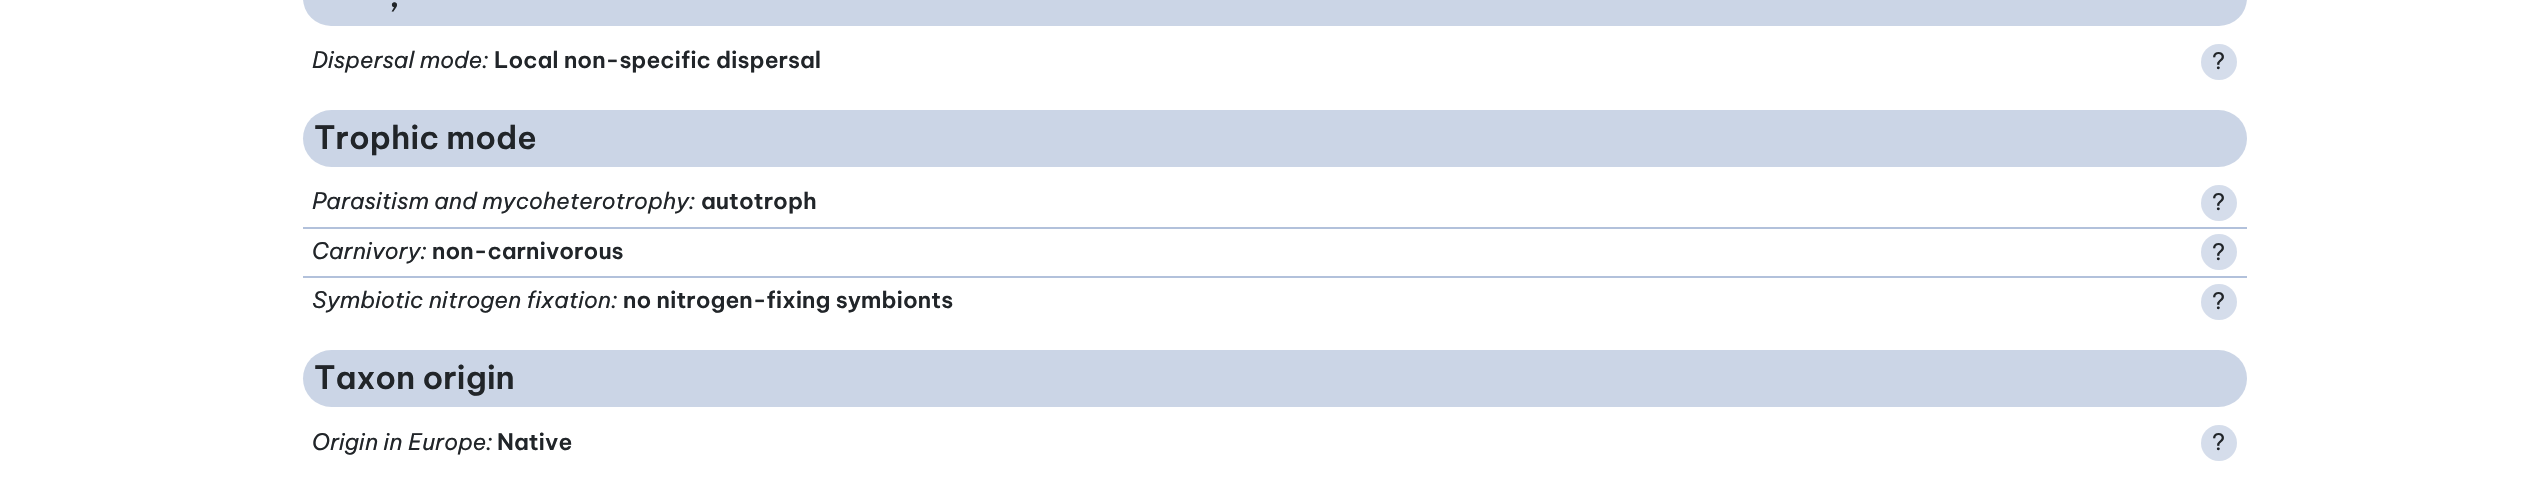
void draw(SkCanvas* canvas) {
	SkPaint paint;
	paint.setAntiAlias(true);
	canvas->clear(0xffffffff);
	paint.setColor(0xffcbd5e6);
	canvas->drawRoundRect(SkRect::MakeXYWH(303, -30, 1944, 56), 29.5, 29.5, paint);
	SkFont f1(fontMgr->matchFamilyStyle("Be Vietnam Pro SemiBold", SkFontStyle(600, SkFontStyle::kNormal_Width, SkFontStyle::kUpright_Slant)), 32);
	f1.setSubpixel(true);
	paint.setColor(0xff212529);
	canvas->drawString(",", 389, 7, f1, paint);
	SkFont f2(fontMgr->matchFamilyStyle("Be Vietnam Pro", SkFontStyle::Italic()), 22.75);
	f2.setSubpixel(true);
	canvas->drawString("Dispersal mode:", 312, 68, f2, paint);
	SkFont f3(fontMgr->matchFamilyStyle("Be Vietnam Pro SemiBold", SkFontStyle(600, SkFontStyle::kNormal_Width, SkFontStyle::kUpright_Slant)), 22.75);
	f3.setSubpixel(true);
	canvas->drawString("Local non-specific dispersal", 494, 68, f3, paint);
	paint.setColor(0xffd5ddeb);
	canvas->drawCircle(2219, 62, 18, paint);
	SkFont f4(fontMgr->matchFamilyStyle("Be Vietnam Pro", SkFontStyle::Normal()), 22.75);
	f4.setSubpixel(true);
	paint.setColor(0xff212529);
	canvas->drawString("?", 2212, 69, f4, paint);
	paint.setColor(0xffcbd5e6);
	canvas->drawRoundRect(SkRect::MakeXYWH(303, 110, 1944, 57), 28.5, 28.5, paint);
	paint.setColor(0xff212529);
	canvas->drawString("Trophic mode", 314, 149, f1, paint);
	canvas->drawString("Parasitism and mycoheterotrophy", 312, 209, f2, paint);
	canvas->drawString(":", 689, 209, f2, paint);
	canvas->drawString("autotroph", 701, 209, f3, paint);
	paint.setColor(0xffd5ddeb);
	canvas->drawCircle(2219, 203, 18, paint);
	paint.setColor(0xff212529);
	canvas->drawString("?", 2212, 210, f4, paint);
	paint.setColor(0xffb2c1db);
	canvas->drawRect(SkRect::MakeXYWH(303, 227, 1944, 2), paint);
	paint.setColor(0xff212529);
	canvas->drawString("Carnivory:", 312, 259, f2, paint);
	canvas->drawString("non-carnivorous", 432, 259, f3, paint);
	paint.setColor(0xffd5ddeb);
	canvas->drawCircle(2219, 252, 18, paint);
	paint.setColor(0xff212529);
	canvas->drawString("?", 2212, 260, f4, paint);
	paint.setColor(0xffb2c1db);
	canvas->drawRect(SkRect::MakeXYWH(303, 276, 1944, 2), paint);
	paint.setColor(0xff212529);
	canvas->drawString("Symbiotic nitrogen fixation:", 312, 308, f2, paint);
	canvas->drawString("no nitrogen-fixing symbionts", 623, 308, f3, paint);
	paint.setColor(0xffd5ddeb);
	canvas->drawCircle(2219, 302, 18, paint);
	paint.setColor(0xff212529);
	canvas->drawString("?", 2212, 309, f4, paint);
	paint.setColor(0xffcbd5e6);
	canvas->drawRoundRect(SkRect::MakeXYWH(303, 350, 1944, 57), 28.5, 28.5, paint);
	paint.setColor(0xff212529);
	canvas->drawString("Taxon origin", 314, 389, f1, paint);
	canvas->drawString("Origin in Europe:", 312, 450, f2, paint);
	canvas->drawString("Native", 497, 450, f3, paint);
	paint.setColor(0xffd5ddeb);
	canvas->drawCircle(2219, 443, 18, paint);
	paint.setColor(0xff212529);
	canvas->drawString("?", 2212, 450, f4, paint);
}
